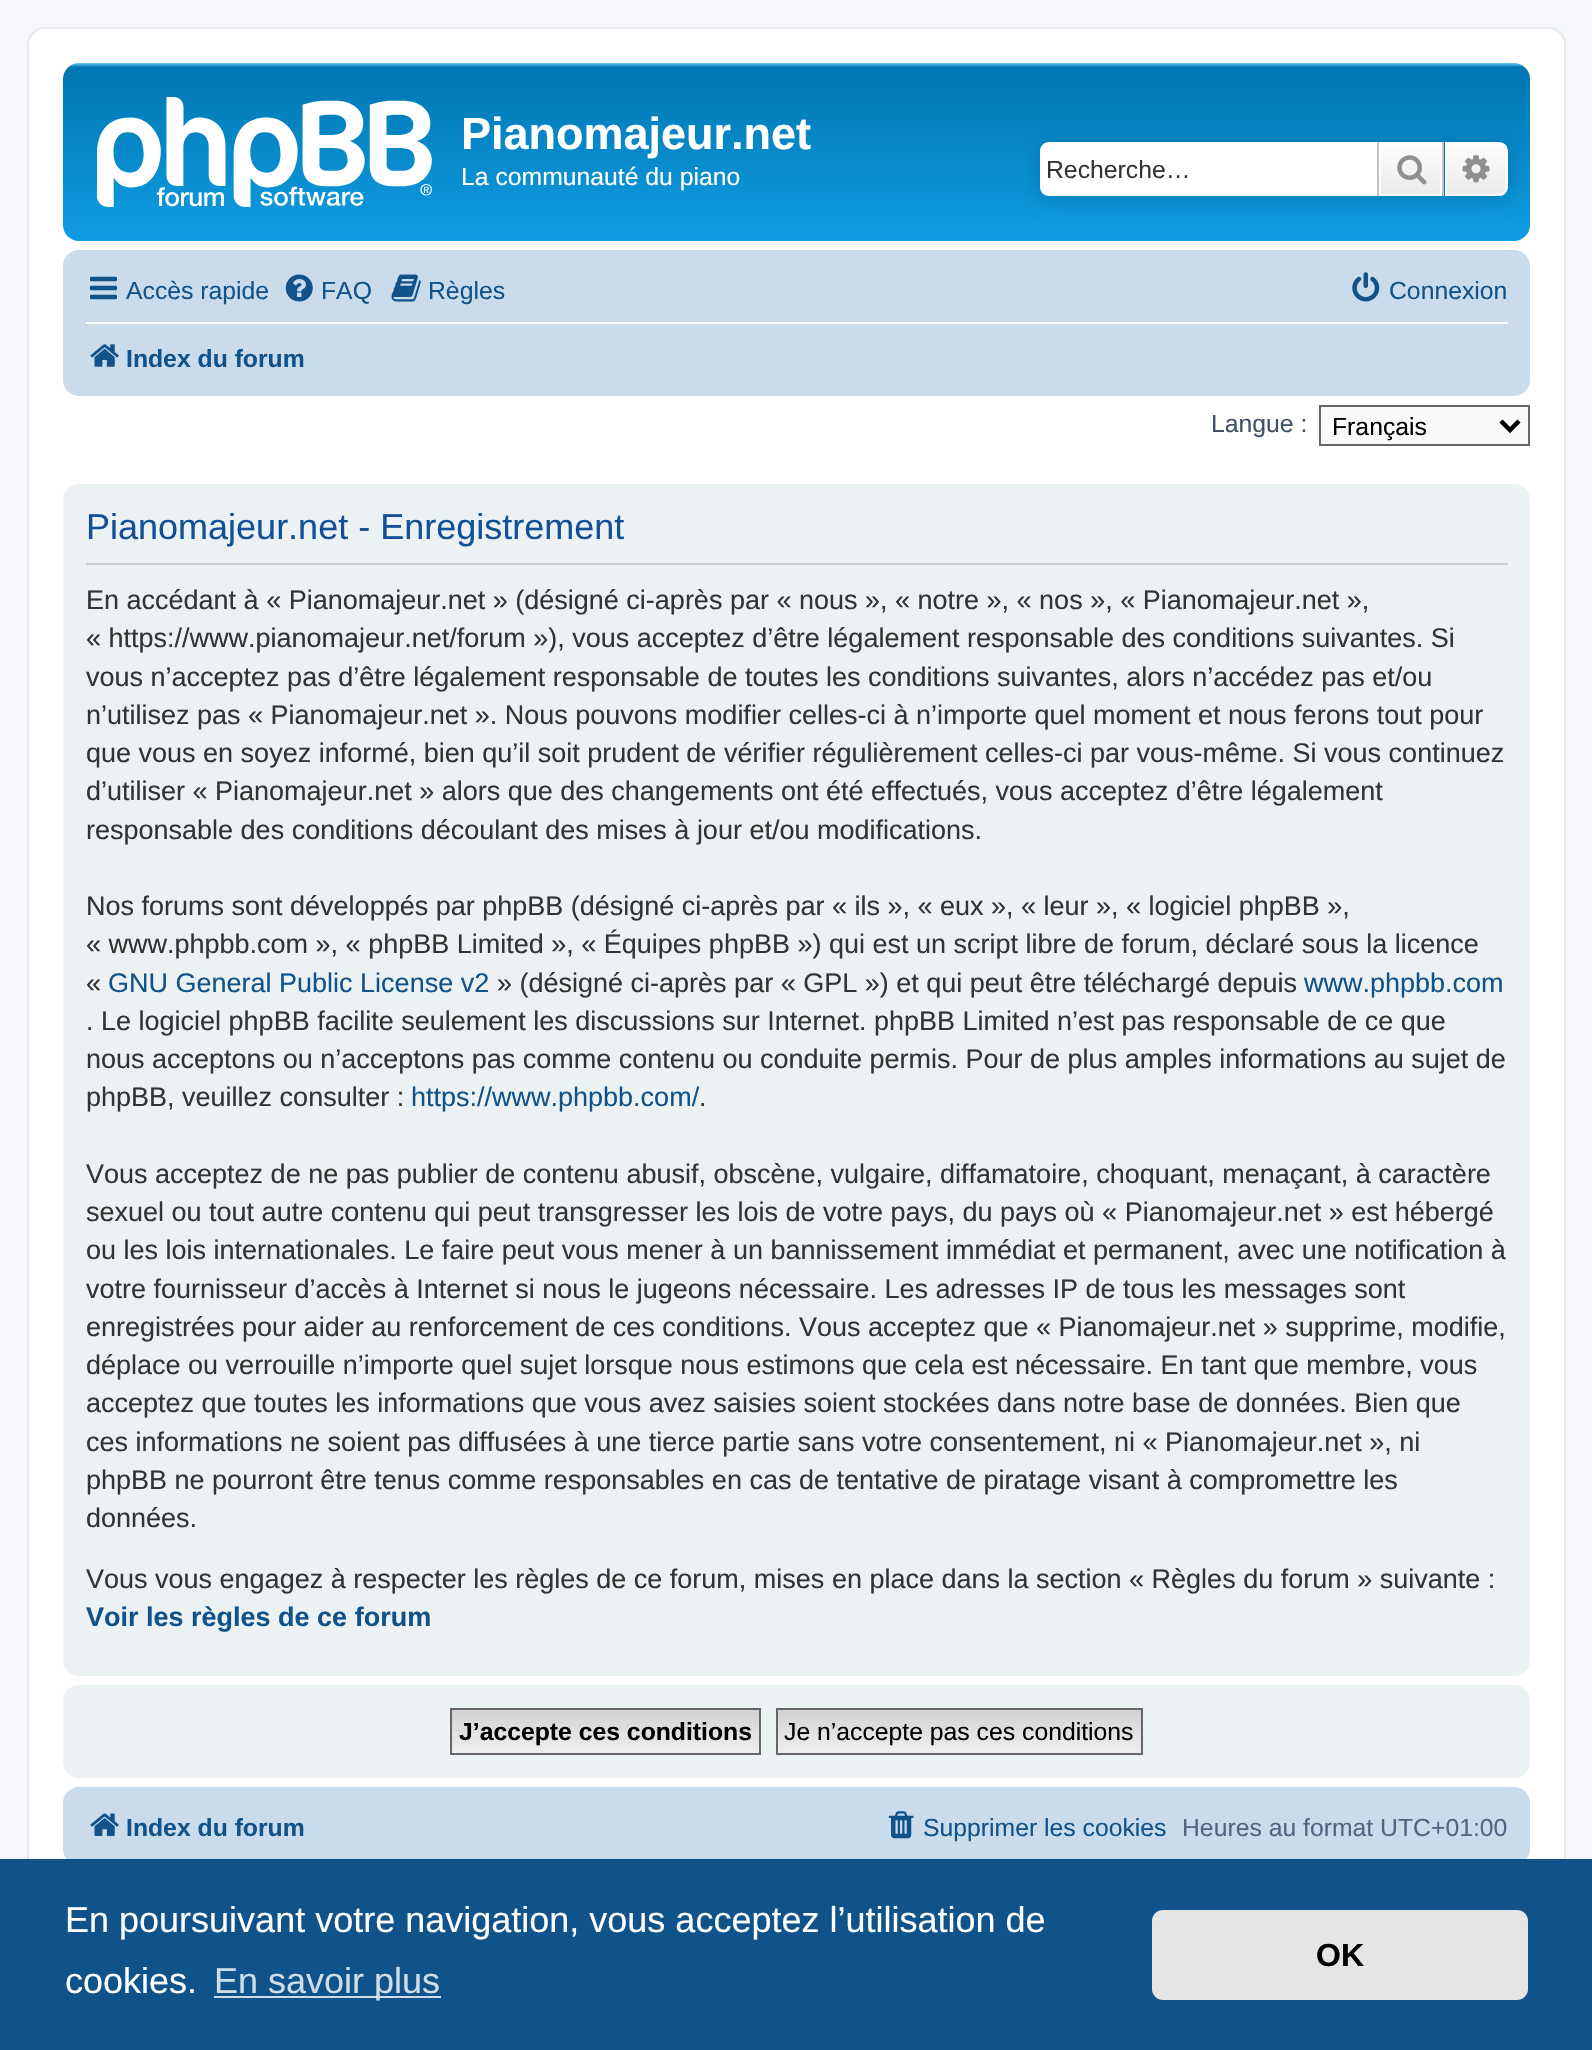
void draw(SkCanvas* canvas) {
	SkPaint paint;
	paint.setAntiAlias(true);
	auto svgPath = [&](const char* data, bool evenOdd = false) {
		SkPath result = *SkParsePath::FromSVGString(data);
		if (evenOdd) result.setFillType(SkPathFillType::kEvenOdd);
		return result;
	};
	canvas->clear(0xfff5f7fa);
	paint.setColor(0xffffffff);
	canvas->drawRoundRect(SkRect::MakeXYWH(28, 28, 1537, 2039), 17, 17, paint);
	paint.setStroke(true);
	paint.setStrokeWidth(2);
	paint.setColor(0xffe6e9ed);
	canvas->drawRoundRect(SkRect::MakeXYWH(28, 28, 1537, 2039), 17, 17, paint);
	paint.setStroke(false);
	{
		const SkColor colors[] = {0xff6aceff, 0xff0076b1, 0xff12a3eb};
		const float stops[] = {0, 0.02, 1};
		const SkPoint ends[] = {{797, 63}, {797, 270}};
		paint.setShader(SkGradientShader::MakeLinear(ends, colors, stops, 3, SkTileMode::kClamp));
		paint.setAlpha(255);
	}
	canvas->drawRoundRect(SkRect::MakeXYWH(63, 63, 1467, 178), 16, 16, paint);
	canvas->drawImageRect(SkImages::DeferredFromEncodedData(SkData::MakeFromFileName("img1.png")), SkRect::MakeXYWH(97, 97, 335, 110), SkSamplingOptions());
	SkFont f1(fontMgr->matchFamilyStyle("Liberation Sans", SkFontStyle::Bold()), 45);
	f1.setSubpixel(true);
	paint.setShader(nullptr);
	paint.setColor(0xffffffff);
	canvas->drawString("Pianomajeur.net", 461, 149, f1, paint);
	SkFont f2(fontMgr->matchFamilyStyle("Liberation Sans", SkFontStyle::Normal()), 24.75);
	f2.setSubpixel(true);
	canvas->drawString("La communauté du piano", 461, 185, f2, paint);
	paint.setColor(0xff0075b0);
	paint.setMaskFilter(SkMaskFilter::MakeBlur(kNormal_SkBlurStyle, 11));
	canvas->drawRoundRect(SkRect::MakeXYWH(1040, 142, 468, 54), 9, 9, paint);
	paint.setMaskFilter(nullptr);
	paint.setColor(0xffffffff);
	canvas->drawPath(svgPath("M1049 142H1377V196H1049C1044 196 1040 192 1040 187V151C1040 146 1044 142 1049 142Z"), paint);
	paint.setColor(0xff333333);
	canvas->drawString("Recherche…", 1046, 178, f2, paint);
	{
		const SkColor colors[] = {0xffffffff, 0xffe9e9e9};
		const float stops[] = {0, 1};
		const SkPoint ends[] = {{1411, 142}, {1411, 196}};
		paint.setShader(SkGradientShader::MakeLinear(ends, colors, stops, 2, SkTileMode::kClamp));
		paint.setAlpha(255);
	}
	canvas->drawRect(SkRect::MakeXYWH(1381, 144, 59, 50), paint);
	paint.setStroke(true);
	paint.setShader(nullptr);
	paint.setColor(0xffffffff);
	canvas->drawRect(SkRect::MakeXYWH(1380, 143, 61, 52), paint);
	paint.setStroke(false);
	paint.setColor(0xffc7c3bf);
	canvas->drawRect(SkRect::MakeXYWH(1442, 142, 2, 54), paint);
	canvas->drawRect(SkRect::MakeXYWH(1377, 142, 2, 54), paint);
	canvas->drawImageRect(SkImages::DeferredFromEncodedData(SkData::MakeFromFileName("img2.png")), SkRect::MakeXYWH(1397, 155, 30, 30), SkSamplingOptions());
	{
		const SkColor colors[] = {0xffffffff, 0xffe9e9e9};
		const float stops[] = {0, 1};
		const SkPoint ends[] = {{1476, 142}, {1476, 196}};
		paint.setShader(SkGradientShader::MakeLinear(ends, colors, stops, 2, SkTileMode::kClamp));
		paint.setAlpha(255);
	}
	canvas->drawPath(svgPath("M1446 143H1499C1503.5 143 1507 146.5 1507 151V187C1507 191.5 1503.5 195 1499 195H1446Z"), paint);
	paint.setStroke(true);
	paint.setShader(nullptr);
	paint.setColor(0xffffffff);
	canvas->drawPath(svgPath("M1446 143H1499C1503.5 143 1507 146.5 1507 151V187C1507 191.5 1503.5 195 1499 195H1446Z"), paint);
	canvas->drawImageRect(SkImages::DeferredFromEncodedData(SkData::MakeFromFileName("img3.png")), SkRect::MakeXYWH(1462, 155, 28, 28), SkSamplingOptions());
	paint.setStroke(false);
	paint.setColor(0xffcadceb);
	canvas->drawRoundRect(SkRect::MakeXYWH(63, 250, 1467, 146), 16, 16, paint);
	canvas->drawImageRect(SkImages::DeferredFromEncodedData(SkData::MakeFromFileName("img4.png")), SkRect::MakeXYWH(90, 276, 27, 24), SkSamplingOptions());
	paint.setColor(0xff105289);
	canvas->drawString("Accès rapide", 126, 299, f2, paint);
	canvas->drawImageRect(SkImages::DeferredFromEncodedData(SkData::MakeFromFileName("img5.png")), SkRect::MakeXYWH(285, 274, 28, 28), SkSamplingOptions());
	canvas->drawString("FAQ", 321, 299, f2, paint);
	canvas->drawImageRect(SkImages::DeferredFromEncodedData(SkData::MakeFromFileName("img6.png")), SkRect::MakeXYWH(391, 274, 30, 28), SkSamplingOptions());
	canvas->drawString("Règles", 428, 299, f2, paint);
	canvas->drawImageRect(SkImages::DeferredFromEncodedData(SkData::MakeFromFileName("img7.png")), SkRect::MakeXYWH(1352, 272, 28, 30), SkSamplingOptions());
	canvas->drawString("Connexion", 1389, 299, f2, paint);
	paint.setColor(0xffffffff);
	canvas->drawRect(SkRect::MakeXYWH(86, 322, 1422, 2), paint);
	canvas->drawImageRect(SkImages::DeferredFromEncodedData(SkData::MakeFromFileName("img8.png")), SkRect::MakeXYWH(90, 344, 29, 23), SkSamplingOptions());
	SkFont f3(fontMgr->matchFamilyStyle("Liberation Sans", SkFontStyle::Bold()), 24.75);
	f3.setSubpixel(true);
	paint.setColor(0xff105289);
	canvas->drawString("Index du forum", 126, 367, f3, paint);
	paint.setColor(0xff425067);
	canvas->drawString("Langue :", 1211, 432, f2, paint);
	paint.setColor(0xfffafafa);
	canvas->drawRect(SkRect::MakeXYWH(1320, 406, 209, 39), paint);
	paint.setStroke(true);
	paint.setColor(0xff666666);
	canvas->drawRect(SkRect::MakeXYWH(1320, 406, 209, 39), paint);
	paint.setStrokeWidth(4.5);
	paint.setColor(0xff000000);
	canvas->drawPath(svgPath("M1501 421L1510 430L1519 421"), paint);
	paint.setStroke(false);
	canvas->drawString("Français", 1332, 435, f2, paint);
	paint.setColor(0xffecf1f3);
	canvas->drawRoundRect(SkRect::MakeXYWH(63, 484, 1467, 1192), 16, 16, paint);
	paint.setColor(0xffcccccc);
	canvas->drawRect(SkRect::MakeXYWH(86, 563, 1422, 2), paint);
	SkFont f4(fontMgr->matchFamilyStyle("Liberation Sans", SkFontStyle::Normal()), 36);
	f4.setSubpixel(true);
	paint.setColor(0xff115098);
	canvas->drawString("Pianomajeur.net - Enregistrement", 86, 539, f4, paint);
	SkFont f5(fontMgr->matchFamilyStyle("Liberation Sans", SkFontStyle::Normal()), 27);
	f5.setSubpixel(true);
	paint.setColor(0xff333333);
	canvas->drawString("En accédant à « Pianomajeur.net » (désigné ci-après par « nous », « notre », « nos », « Pianomajeur.net »,", 86, 609, f5, paint);
	canvas->drawString("« https://www.pianomajeur.net/forum »), vous acceptez d’être légalement responsable des conditions suivantes. Si", 86, 647, f5, paint);
	canvas->drawString("vous n’acceptez pas d’être légalement responsable de toutes les conditions suivantes, alors n’accédez pas et/ou", 86, 686, f5, paint);
	canvas->drawString("n’utilisez pas « Pianomajeur.net ». Nous pouvons modifier celles-ci à n’importe quel moment et nous ferons tout pour", 86, 724, f5, paint);
	canvas->drawString("que vous en soyez informé, bien qu’il soit prudent de vérifier régulièrement celles-ci par vous-même. Si vous continuez", 86, 762, f5, paint);
	canvas->drawString("d’utiliser « Pianomajeur.net » alors que des changements ont été effectués, vous acceptez d’être légalement", 86, 800, f5, paint);
	canvas->drawString("responsable des conditions découlant des mises à jour et/ou modifications.", 86, 839, f5, paint);
	canvas->drawString("Nos forums sont développés par phpBB (désigné ci-après par « ils », « eux », « leur », « logiciel phpBB »,", 86, 915, f5, paint);
	canvas->drawString("« www.phpbb.com », « phpBB Limited », « Équipes phpBB ») qui est un script libre de forum, déclaré sous la licence", 86, 953, f5, paint);
	canvas->drawString("«", 86, 992, f5, paint);
	paint.setColor(0xff105289);
	canvas->drawString("GNU General Public License v2", 108, 992, f5, paint);
	paint.setColor(0xff333333);
	canvas->drawString("» (désigné ci-après par « GPL ») et qui peut être téléchargé depuis", 497, 992, f5, paint);
	paint.setColor(0xff105289);
	canvas->drawString("www.phpbb.com", 1304, 992, f5, paint);
	paint.setColor(0xff333333);
	canvas->drawString(". Le logiciel phpBB facilite seulement les discussions sur Internet. phpBB Limited n’est pas responsable de ce que", 86, 1030, f5, paint);
	canvas->drawString("nous acceptons ou n’acceptons pas comme contenu ou conduite permis. Pour de plus amples informations au sujet de", 86, 1068, f5, paint);
	canvas->drawString("phpBB, veuillez consulter :", 86, 1106, f5, paint);
	paint.setColor(0xff105289);
	canvas->drawString("https://www.phpbb.com/", 411, 1106, f5, paint);
	paint.setColor(0xff333333);
	canvas->drawString(".", 699, 1106, f5, paint);
	canvas->drawString("Vous acceptez de ne pas publier de contenu abusif, obscène, vulgaire, diffamatoire, choquant, menaçant, à caractère", 86, 1183, f5, paint);
	canvas->drawString("sexuel ou tout autre contenu qui peut transgresser les lois de votre pays, du pays où « Pianomajeur.net » est hébergé", 86, 1221, f5, paint);
	canvas->drawString("ou les lois internationales. Le faire peut vous mener à un bannissement immédiat et permanent, avec une notification à", 86, 1259, f5, paint);
	canvas->drawString("votre fournisseur d’accès à Internet si nous le jugeons nécessaire. Les adresses IP de tous les messages sont", 86, 1298, f5, paint);
	canvas->drawString("enregistrées pour aider au renforcement de ces conditions. Vous acceptez que « Pianomajeur.net » supprime, modifie,", 86, 1336, f5, paint);
	canvas->drawString("déplace ou verrouille n’importe quel sujet lorsque nous estimons que cela est nécessaire. En tant que membre, vous", 86, 1374, f5, paint);
	canvas->drawString("acceptez que toutes les informations que vous avez saisies soient stockées dans notre base de données. Bien que", 86, 1412, f5, paint);
	canvas->drawString("ces informations ne soient pas diffusées à une tierce partie sans votre consentement, ni « Pianomajeur.net », ni", 86, 1451, f5, paint);
	canvas->drawString("phpBB ne pourront être tenus comme responsables en cas de tentative de piratage visant à compromettre les", 86, 1489, f5, paint);
	canvas->drawString("données.", 86, 1527, f5, paint);
	canvas->drawString("Vous vous engagez à respecter les règles de ce forum, mises en place dans la section « Règles du forum » suivante :", 86, 1588, f5, paint);
	SkFont f6(fontMgr->matchFamilyStyle("Liberation Sans", SkFontStyle::Bold()), 27);
	f6.setSubpixel(true);
	paint.setColor(0xff105289);
	canvas->drawString("Voir les règles de ce forum", 86, 1626, f6, paint);
	paint.setColor(0xffecf1f3);
	canvas->drawRoundRect(SkRect::MakeXYWH(63, 1685, 1467, 93), 16, 16, paint);
	{
		const SkColor colors[] = {0xffd2d2d2, 0xffefefef};
		const float stops[] = {0, 1};
		const SkPoint ends[] = {{605, 1710}, {605, 1753}};
		paint.setShader(SkGradientShader::MakeLinear(ends, colors, stops, 2, SkTileMode::kClamp));
		paint.setAlpha(255);
	}
	canvas->drawRect(SkRect::MakeXYWH(452, 1710, 307, 43), paint);
	paint.setStroke(true);
	paint.setStrokeWidth(2);
	paint.setShader(nullptr);
	paint.setColor(0xff666666);
	canvas->drawRect(SkRect::MakeXYWH(451, 1709, 309, 45), paint);
	paint.setStroke(false);
	paint.setColor(0xff000000);
	canvas->drawString("J’accepte ces conditions", 459, 1740, f3, paint);
	{
		const SkColor colors[] = {0xffd2d2d2, 0xffefefef};
		const float stops[] = {0, 1};
		const SkPoint ends[] = {{960, 1710}, {960, 1753}};
		paint.setShader(SkGradientShader::MakeLinear(ends, colors, stops, 2, SkTileMode::kClamp));
		paint.setAlpha(255);
	}
	canvas->drawRect(SkRect::MakeXYWH(778, 1710, 363, 43), paint);
	paint.setStroke(true);
	paint.setShader(nullptr);
	paint.setColor(0xff666666);
	canvas->drawRect(SkRect::MakeXYWH(777, 1709, 365, 45), paint);
	paint.setStroke(false);
	paint.setColor(0xff000000);
	canvas->drawString("Je n’accepte pas ces conditions", 784, 1740, f2, paint);
	paint.setColor(0xffcadceb);
	canvas->drawRoundRect(SkRect::MakeXYWH(63, 1787, 1467, 78), 16, 16, paint);
	canvas->drawImageRect(SkImages::DeferredFromEncodedData(SkData::MakeFromFileName("img9.png")), SkRect::MakeXYWH(90, 1813, 29, 23), SkSamplingOptions());
	paint.setColor(0xff105289);
	canvas->drawString("Index du forum", 126, 1836, f3, paint);
	canvas->drawImageRect(SkImages::DeferredFromEncodedData(SkData::MakeFromFileName("img10.png")), SkRect::MakeXYWH(888, 1811, 26, 28), SkSamplingOptions());
	canvas->drawString("Supprimer les cookies", 923, 1836, f2, paint);
	paint.setColor(0xff536482);
	canvas->drawString("Heures au format UTC+01:00", 1182, 1836, f2, paint);
	paint.setColor(0xff0f538a);
	canvas->drawRect(SkRect::MakeXYWH(0, 1859, 1592, 191), paint);
	paint.setColor(0xffffffff);
	canvas->drawString("En poursuivant votre navigation, vous acceptez l’utilisation de", 65, 1932, f4, paint);
	canvas->drawString("cookies.", 65, 1993, f4, paint);
	paint.setColor(0xffcfdde8);
	canvas->drawRect(SkRect::MakeXYWH(214, 1996, 227, 2), paint);
	canvas->drawString("En savoir plus", 214, 1993, f4, paint);
	paint.setColor(0xffe5e5e5);
	canvas->drawRoundRect(SkRect::MakeXYWH(1152, 1910, 376, 90), 11, 11, paint);
	SkFont f7(fontMgr->matchFamilyStyle("Liberation Sans", SkFontStyle::Bold()), 32);
	f7.setSubpixel(true);
	paint.setColor(0xff000000);
	canvas->drawString("OK", 1316, 1966, f7, paint);
}
